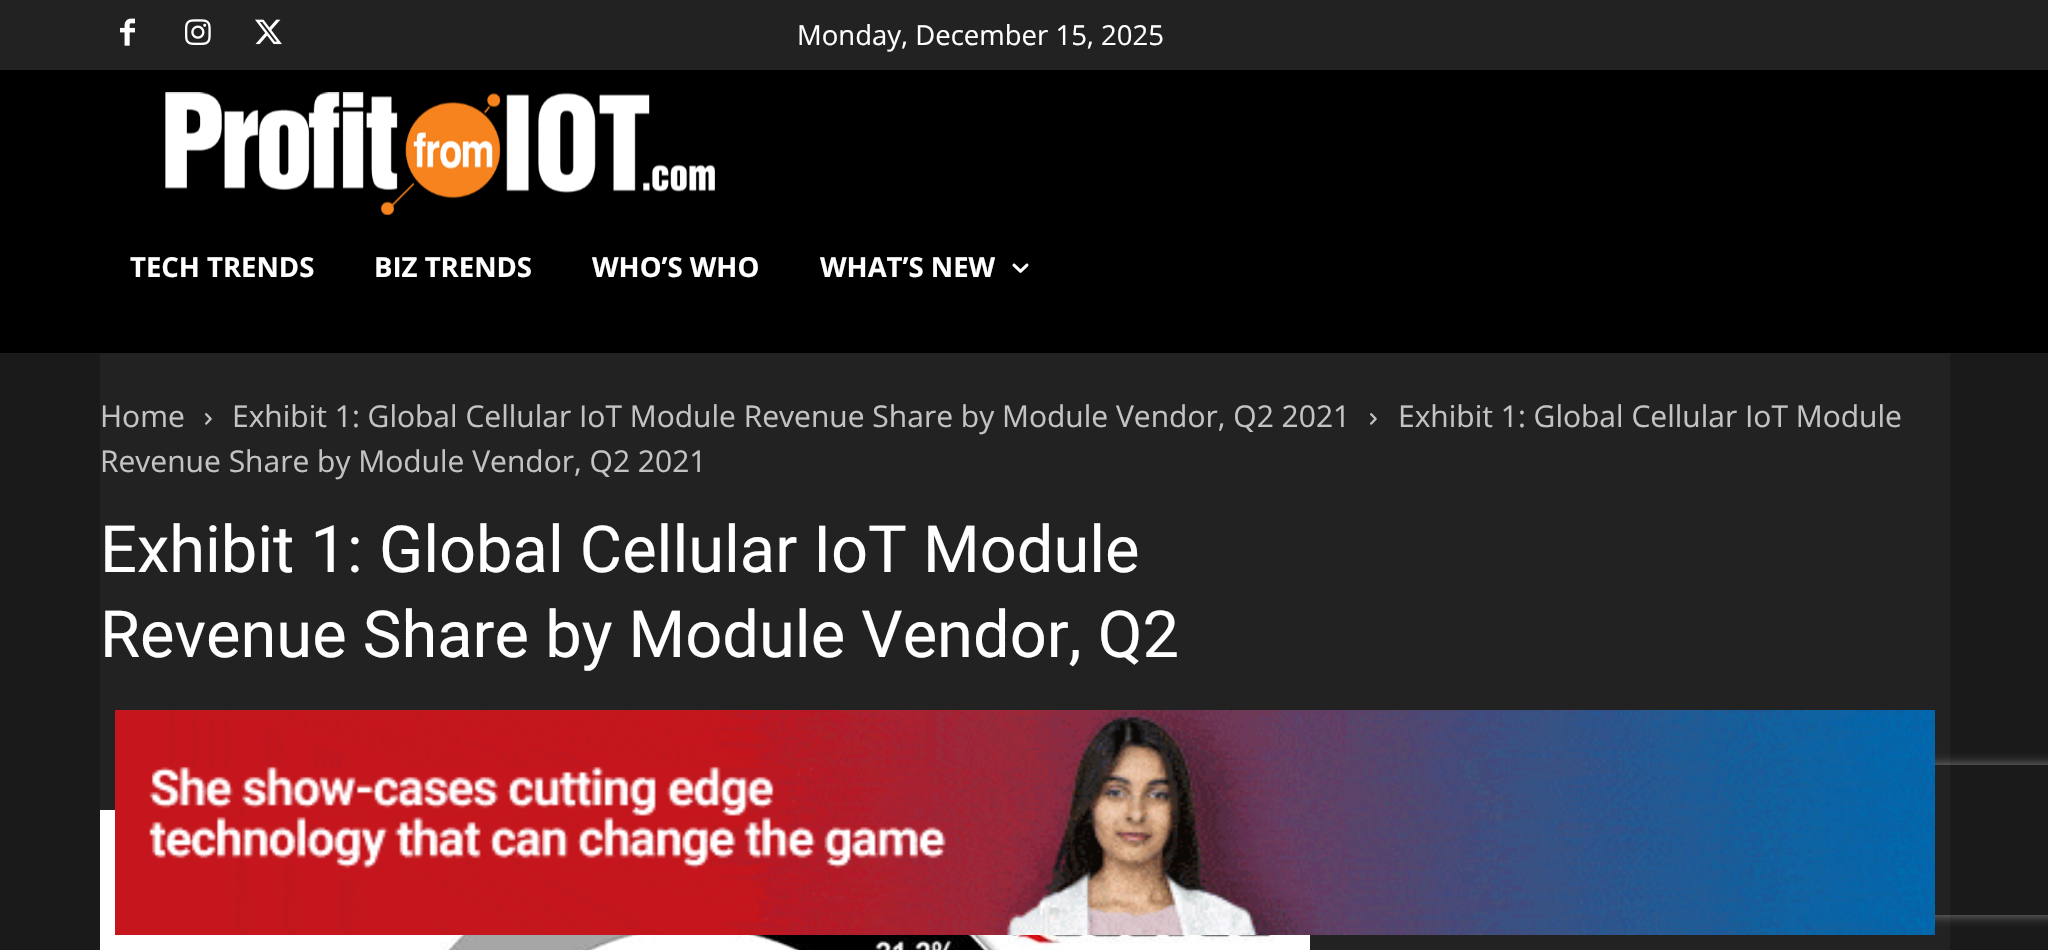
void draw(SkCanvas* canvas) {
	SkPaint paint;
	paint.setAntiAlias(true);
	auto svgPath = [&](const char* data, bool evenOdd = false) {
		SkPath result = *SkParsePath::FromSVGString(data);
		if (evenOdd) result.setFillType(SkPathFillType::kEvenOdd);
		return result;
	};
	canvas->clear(0xff1a1a1a);
	paint.setColor(0xff222222);
	canvas->drawRect(SkRect::MakeXYWH(0, 0, 2048, 70), paint);
	canvas->drawImageRect(SkImages::DeferredFromEncodedData(SkData::MakeFromFileName("img1.png")), SkRect::MakeXYWH(120, 18, 15, 28), SkSamplingOptions());
	canvas->drawImageRect(SkImages::DeferredFromEncodedData(SkData::MakeFromFileName("img2.png")), SkRect::MakeXYWH(185, 19, 26, 26), SkSamplingOptions());
	canvas->drawImageRect(SkImages::DeferredFromEncodedData(SkData::MakeFromFileName("img3.png")), SkRect::MakeXYWH(255, 19, 27, 26), SkSamplingOptions());
	SkFont f1(fontMgr->matchFamilyStyle("Open Sans", SkFontStyle::Normal()), 27.5);
	f1.setSubpixel(true);
	paint.setColor(0xffffffff);
	canvas->drawString("Monday, December 15, 2025", 797, 45, f1, paint);
	paint.setColor(0xff000000);
	canvas->drawRect(SkRect::MakeXYWH(0, 70, 2048, 283), paint);
	canvas->drawImageRect(SkImages::DeferredFromEncodedData(SkData::MakeFromFileName("img4.png")), SkRect::MakeXYWH(165, 92, 550, 123), SkSamplingOptions());
	SkFont f2(fontMgr->matchFamilyStyle("Open Sans", SkFontStyle::Bold()), 27.5);
	f2.setSubpixel(true);
	paint.setColor(0xffffffff);
	canvas->drawString("TECH TRENDS", 130, 277, f2, paint);
	canvas->drawString("BIZ TRENDS", 374, 277, f2, paint);
	canvas->drawString("WHO’S WHO", 592, 277, f2, paint);
	canvas->drawString("WHAT’S NEW", 820, 277, f2, paint);
	canvas->drawImageRect(SkImages::DeferredFromEncodedData(SkData::MakeFromFileName("img5.png")), SkRect::MakeXYWH(1012, 263, 17, 10), SkSamplingOptions());
	paint.setColor(0xff222222);
	canvas->drawRect(SkRect::MakeXYWH(100, 353, 1850, 597), paint);
	SkFont f3(fontMgr->matchFamilyStyle("Open Sans", SkFontStyle::Normal()), 30);
	f3.setSubpixel(true);
	paint.setColor(0xffc3c3c3);
	canvas->drawString("Home", 100, 427, f3, paint);
	canvas->drawImageRect(SkImages::DeferredFromEncodedData(SkData::MakeFromFileName("img6.png")), SkRect::MakeXYWH(205, 413, 7, 12), SkSamplingOptions());
	canvas->drawString("Exhibit 1: Global Cellular IoT Module Revenue Share by Module Vendor, Q2 2021", 232, 427, f3, paint);
	canvas->drawImageRect(SkImages::DeferredFromEncodedData(SkData::MakeFromFileName("img6.png")), SkRect::MakeXYWH(1370, 413, 7, 12), SkSamplingOptions());
	canvas->drawString("Exhibit 1: Global Cellular IoT Module", 1398, 427, f3, paint);
	canvas->drawString("Revenue Share by Module Vendor, Q2 2021", 100, 472, f3, paint);
	SkFont f4(fontMgr->matchFamilyStyle("Roboto", SkFontStyle::Normal()), 65);
	f4.setSubpixel(true);
	paint.setColor(0xffffffff);
	canvas->drawString("Exhibit 1: Global Cellular IoT Module", 100, 572, f4, paint);
	canvas->drawString("Revenue Share by Module Vendor, Q2", 100, 657, f4, paint);
	canvas->drawImageRect(SkImages::DeferredFromEncodedData(SkData::MakeFromFileName("img7.png")), SkRect::MakeXYWH(100, 810, 1210, 140), SkSamplingOptions());
	canvas->save();
	canvas->clipPath(svgPath("M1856 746H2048V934H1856ZM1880 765H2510C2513 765 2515 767 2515 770V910C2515 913 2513 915 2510 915H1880C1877 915 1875 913 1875 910V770C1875 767 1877 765 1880 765Z", true), true);
	paint.setColor(0xff808080);
	paint.setMaskFilter(SkMaskFilter::MakeBlur(kNormal_SkBlurStyle, 6));
	canvas->drawRoundRect(SkRect::MakeXYWH(1875, 765, 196, 150), 5, 5, paint);
	paint.setMaskFilter(nullptr);
	canvas->restore();
	canvas->drawImageRect(SkImages::DeferredFromEncodedData(SkData::MakeFromFileName("img8.png")), SkRect::MakeXYWH(115, 710, 1820, 225), SkSamplingOptions());
}
